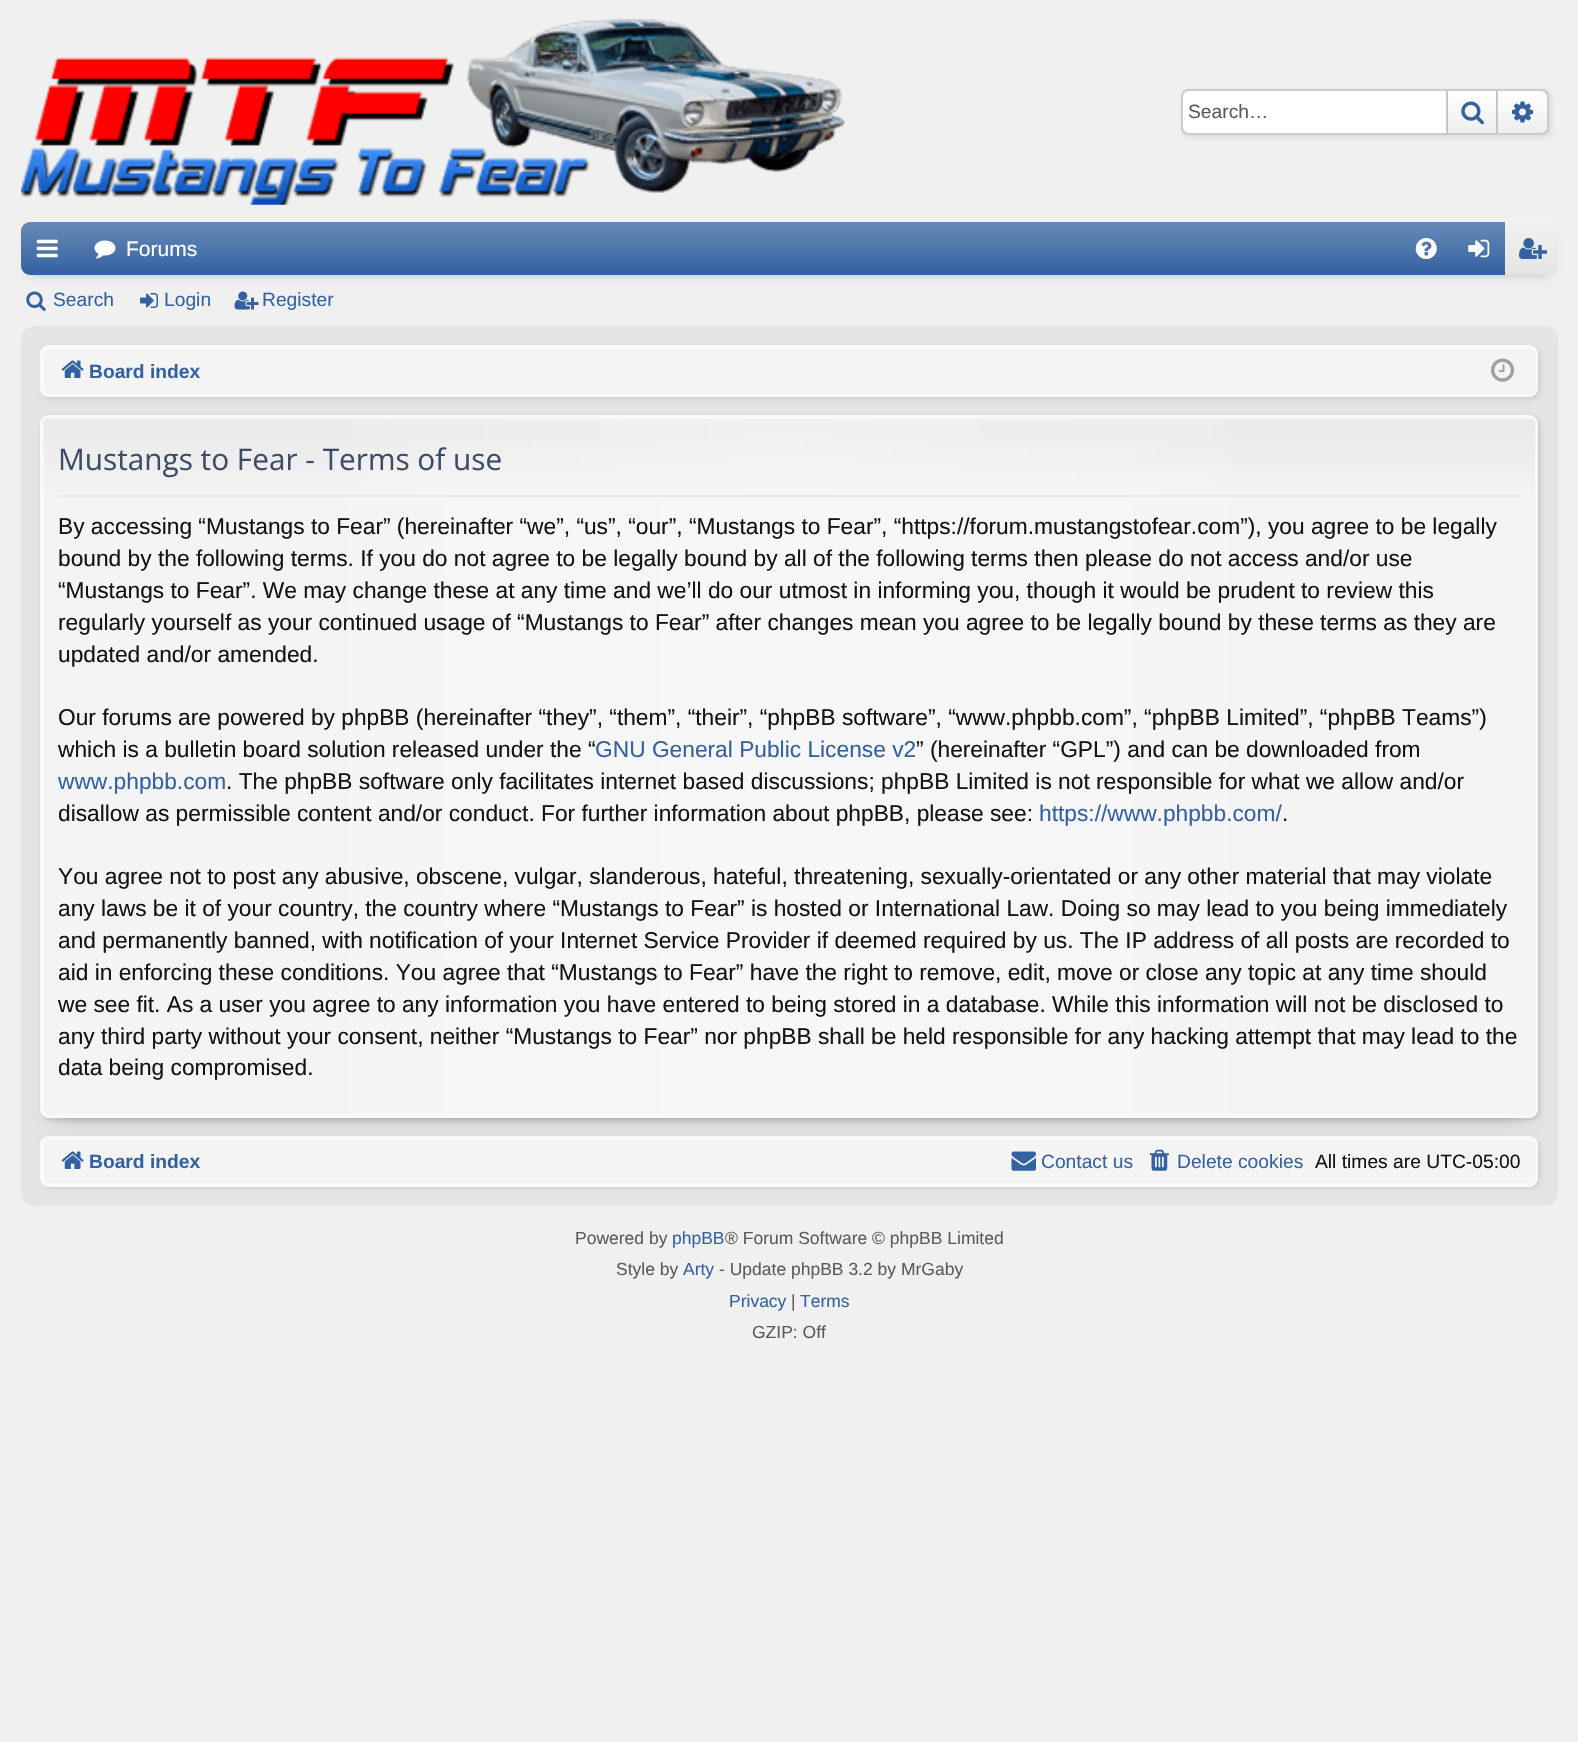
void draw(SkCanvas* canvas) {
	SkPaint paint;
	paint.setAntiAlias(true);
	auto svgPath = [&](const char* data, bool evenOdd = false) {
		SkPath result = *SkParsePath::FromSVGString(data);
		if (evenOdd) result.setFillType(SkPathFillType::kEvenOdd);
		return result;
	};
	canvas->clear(0xfff0f0f0);
	canvas->drawImageRect(SkImages::DeferredFromEncodedData(SkData::MakeFromFileName("img1.png")), SkRect::MakeXYWH(21, 18, 825, 187), SkSamplingOptions());
	paint.setColor(0x1a000000);
	paint.setMaskFilter(SkMaskFilter::MakeBlur(kNormal_SkBlurStyle, 2.5));
	canvas->drawRoundRect(SkRect::MakeXYWH(1183, 91, 368, 46), 7, 7, paint);
	paint.setMaskFilter(nullptr);
	paint.setStroke(true);
	paint.setStrokeWidth(2);
	paint.setColor(0xffcccccc);
	canvas->drawRoundRect(SkRect::MakeXYWH(1182, 90, 366, 44), 6, 6, paint);
	paint.setStroke(false);
	paint.setColor(0xffffffff);
	canvas->drawPath(svgPath("M1190 91H1446V133H1190C1186 133 1183 130 1183 126V98C1183 94 1186 91 1190 91Z"), paint);
	SkFont f1(fontMgr->matchFamilyStyle("Liberation Sans", SkFontStyle::Normal()), 19.25);
	f1.setSubpixel(true);
	paint.setColor(0xff5b5b5b);
	canvas->drawString("Search…", 1188, 118, f1, paint);
	{
		const SkColor colors[] = {0xffffffff, 0xffeeeeee};
		const float stops[] = {0, 1};
		const SkPoint ends[] = {{1472, 91}, {1472, 133}};
		paint.setShader(SkGradientShader::MakeLinear(ends, colors, stops, 2, SkTileMode::kClamp));
		paint.setAlpha(255);
	}
	canvas->drawRect(SkRect::MakeXYWH(1448, 91, 48, 42), paint);
	paint.setShader(nullptr);
	paint.setColor(0xffc6c6c6);
	canvas->drawRect(SkRect::MakeXYWH(1496, 91, 2, 42), paint);
	canvas->drawRect(SkRect::MakeXYWH(1446, 91, 2, 42), paint);
	canvas->drawImageRect(SkImages::DeferredFromEncodedData(SkData::MakeFromFileName("img2.png")), SkRect::MakeXYWH(1461, 101, 23, 24), SkSamplingOptions());
	{
		const SkColor colors[] = {0xffffffff, 0xffeeeeee};
		const float stops[] = {0, 1};
		const SkPoint ends[] = {{1523, 91}, {1523, 133}};
		paint.setShader(SkGradientShader::MakeLinear(ends, colors, stops, 2, SkTileMode::kClamp));
		paint.setAlpha(255);
	}
	canvas->drawPath(svgPath("M1498 91H1540C1544 91 1547 94 1547 98V126C1547 130 1544 133 1540 133H1498Z"), paint);
	canvas->drawImageRect(SkImages::DeferredFromEncodedData(SkData::MakeFromFileName("img3.png")), SkRect::MakeXYWH(1512, 101, 21, 22), SkSamplingOptions());
	paint.setShader(nullptr);
	paint.setColor(0x33000000);
	paint.setMaskFilter(SkMaskFilter::MakeBlur(kNormal_SkBlurStyle, 4.5));
	canvas->drawRect(SkRect::MakeXYWH(30, 240, 1519, 35), paint);
	paint.setMaskFilter(nullptr);
	paint.setColor(0xff3462a0);
	canvas->drawRoundRect(SkRect::MakeXYWH(21, 222, 1537, 53), 9, 9, paint);
	{
		const SkColor colors[] = {0x40ffffff, 0x00ffffff};
		const float stops[] = {0, 1};
		const SkPoint ends[] = {{789, 222}, {789, 275}};
		paint.setShader(SkGradientShader::MakeLinear(ends, colors, stops, 2, SkTileMode::kClamp));
		paint.setAlpha(255);
	}
	canvas->drawRoundRect(SkRect::MakeXYWH(21, 222, 1537, 53), 9, 9, paint);
	canvas->drawImageRect(SkImages::DeferredFromEncodedData(SkData::MakeFromFileName("img4.png")), SkRect::MakeXYWH(36, 239, 22, 19), SkSamplingOptions());
	canvas->drawImageRect(SkImages::DeferredFromEncodedData(SkData::MakeFromFileName("img5.png")), SkRect::MakeXYWH(94, 240, 22, 19), SkSamplingOptions());
	SkFont f2(fontMgr->matchFamilyStyle("Liberation Sans", SkFontStyle::Normal()), 21);
	f2.setSubpixel(true);
	paint.setShader(nullptr);
	paint.setColor(0xffffffff);
	canvas->drawString("Forums", 126, 256, f2, paint);
	canvas->drawImageRect(SkImages::DeferredFromEncodedData(SkData::MakeFromFileName("img6.png")), SkRect::MakeXYWH(1415, 238, 22, 21), SkSamplingOptions());
	canvas->drawImageRect(SkImages::DeferredFromEncodedData(SkData::MakeFromFileName("img7.png")), SkRect::MakeXYWH(1468, 239, 22, 19), SkSamplingOptions());
	paint.setColor(0xffe4e4e4);
	canvas->drawPath(svgPath("M1505 222H1551C1555 222 1558 225 1558 229V268C1558 272 1555 275 1551 275H1505Z"), paint);
	{
		const SkColor colors[] = {0x80ffffff, 0x00ffffff};
		const float stops[] = {0, 1};
		const SkPoint ends[] = {{1531, 222}, {1531, 275}};
		paint.setShader(SkGradientShader::MakeLinear(ends, colors, stops, 2, SkTileMode::kClamp));
		paint.setAlpha(255);
	}
	canvas->drawPath(svgPath("M1505 222H1551C1555 222 1558 225 1558 229V268C1558 272 1555 275 1551 275H1505Z"), paint);
	canvas->drawImageRect(SkImages::DeferredFromEncodedData(SkData::MakeFromFileName("img8.png")), SkRect::MakeXYWH(1519, 238, 28, 21), SkSamplingOptions());
	canvas->drawImageRect(SkImages::DeferredFromEncodedData(SkData::MakeFromFileName("img9.png")), SkRect::MakeXYWH(26, 291, 20, 20), SkSamplingOptions());
	paint.setShader(nullptr);
	paint.setColor(0xff3462a0);
	canvas->drawString("Search", 53, 306, f1, paint);
	canvas->drawImageRect(SkImages::DeferredFromEncodedData(SkData::MakeFromFileName("img10.png")), SkRect::MakeXYWH(140, 293, 18, 15), SkSamplingOptions());
	canvas->drawString("Login", 164, 306, f1, paint);
	canvas->drawImageRect(SkImages::DeferredFromEncodedData(SkData::MakeFromFileName("img11.png")), SkRect::MakeXYWH(234, 291, 25, 19), SkSamplingOptions());
	canvas->drawString("Register", 262, 306, f1, paint);
	paint.setColor(0xffe4e4e4);
	canvas->drawRoundRect(SkRect::MakeXYWH(22, 327, 1535, 878), 13, 13, paint);
	paint.setStroke(true);
	canvas->drawRoundRect(SkRect::MakeXYWH(22, 327, 1535, 878), 13, 13, paint);
	paint.setStroke(false);
	paint.setColor(0x1a000000);
	paint.setMaskFilter(SkMaskFilter::MakeBlur(kNormal_SkBlurStyle, 2));
	canvas->drawRoundRect(SkRect::MakeXYWH(42, 347, 1498, 52), 9, 9, paint);
	paint.setMaskFilter(nullptr);
	paint.setColor(0xfff4f4f4);
	canvas->drawRoundRect(SkRect::MakeXYWH(40, 345, 1498, 52), 9, 9, paint);
	paint.setStroke(true);
	paint.setColor(0xfffafafa);
	canvas->drawRoundRect(SkRect::MakeXYWH(43, 348, 1493, 47), 6, 6, paint);
	paint.setColor(0xfff9f9f9);
	canvas->drawRoundRect(SkRect::MakeXYWH(41, 346, 1496, 50), 8, 8, paint);
	canvas->drawImageRect(SkImages::DeferredFromEncodedData(SkData::MakeFromFileName("img12.png")), SkRect::MakeXYWH(61, 360, 23, 18), SkSamplingOptions());
	SkFont f3(fontMgr->matchFamilyStyle("Liberation Sans", SkFontStyle::Bold()), 19.25);
	f3.setSubpixel(true);
	paint.setStroke(false);
	paint.setColor(0xff3462a0);
	canvas->drawString("Board index", 89, 378, f3, paint);
	canvas->drawImageRect(SkImages::DeferredFromEncodedData(SkData::MakeFromFileName("img13.png")), SkRect::MakeXYWH(1491, 358, 24, 24), SkSamplingOptions());
	paint.setColor(0x33000000);
	paint.setMaskFilter(SkMaskFilter::MakeBlur(kNormal_SkBlurStyle, 9));
	canvas->drawRect(SkRect::MakeXYWH(58, 450, 1463, 668), paint);
	paint.setMaskFilter(nullptr);
	paint.setColor(0x26000000);
	paint.setMaskFilter(SkMaskFilter::MakeBlur(kNormal_SkBlurStyle, 2.5));
	canvas->drawRoundRect(SkRect::MakeXYWH(42, 417, 1498, 703), 9, 9, paint);
	paint.setMaskFilter(nullptr);
	paint.setColor(0xfff4f4f4);
	canvas->drawRoundRect(SkRect::MakeXYWH(40, 415, 1498, 703), 9, 9, paint);
	canvas->save();
	canvas->clipPath(svgPath("M49 415H1529C1534 415 1538 419 1538 424V1109C1538 1114 1534 1118 1529 1118H49C44 1118 40 1114 40 1109V424C40 419 44 415 49 415Z"), true);
	{
		const SkColor colors[] = {0x33cccccc, 0x40cccccc, 0x00cccccc};
		const float stops[] = {0, 0.02, 0.12};
		const SkPoint ends[] = {{789, 416}, {789, 1117}};
		paint.setShader(SkGradientShader::MakeLinear(ends, colors, stops, 3, SkTileMode::kClamp));
		paint.setAlpha(255);
	}
	canvas->drawRect(SkRect::MakeXYWH(40, 417, 1498, 77), paint);
	canvas->restore();
	{
		const SkColor colors[] = {0x00ffffff, 0x4dffffff, 0x00ffffff};
		const float stops[] = {0, 0.5, 1};
		const SkPoint ends[] = {{42, 767}, {1537, 767}};
		paint.setShader(SkGradientShader::MakeLinear(ends, colors, stops, 3, SkTileMode::kClamp));
		paint.setAlpha(255);
	}
	canvas->drawRect(SkRect::MakeXYWH(350, 417, 879, 699), paint);
	paint.setStroke(true);
	paint.setShader(nullptr);
	paint.setColor(0x80ffffff);
	canvas->drawRoundRect(SkRect::MakeXYWH(43, 418, 1493, 698), 6, 6, paint);
	paint.setColor(0xfff9f9f9);
	canvas->drawRoundRect(SkRect::MakeXYWH(41, 416, 1496, 701), 8, 8, paint);
	paint.setStroke(false);
	paint.setColor(0xffe7e7e7);
	canvas->drawRect(SkRect::MakeXYWH(58, 495, 1463, 2), paint);
	SkFont f4(fontMgr->matchFamilyStyle("Open Sans", SkFontStyle::Normal()), 29.75);
	f4.setSubpixel(true);
	paint.setColor(0xff3c4d65);
	canvas->drawString("Mustangs to Fear - Terms of use", 58, 470, f4, paint);
	SkFont f5(fontMgr->matchFamilyStyle("Liberation Sans", SkFontStyle::Normal()), 22.75);
	f5.setSubpixel(true);
	paint.setColor(0xff141414);
	canvas->drawString("By accessing “Mustangs to Fear” (hereinafter “we”, “us”, “our”, “Mustangs to Fear”, “https://forum.mustangstofear.com”), you agree to be legally", 58, 534, f5, paint);
	canvas->drawString("bound by the following terms. If you do not agree to be legally bound by all of the following terms then please do not access and/or use", 58, 566, f5, paint);
	canvas->drawString("“Mustangs to Fear”. We may change these at any time and we’ll do our utmost in informing you, though it would be prudent to review this", 58, 598, f5, paint);
	canvas->drawString("regularly yourself as your continued usage of “Mustangs to Fear” after changes mean you agree to be legally bound by these terms as they are", 58, 630, f5, paint);
	canvas->drawString("updated and/or amended.", 58, 662, f5, paint);
	canvas->drawString("Our forums are powered by phpBB (hereinafter “they”, “them”, “their”, “phpBB software”, “www.phpbb.com”, “phpBB Limited”, “phpBB Teams”)", 58, 725, f5, paint);
	canvas->drawString("which is a bulletin board solution released under the “", 58, 757, f5, paint);
	paint.setColor(0xff3462a0);
	canvas->drawString("GNU General Public License v2", 595, 757, f5, paint);
	paint.setColor(0xff141414);
	canvas->drawString("” (hereinafter “GPL”) and can be downloaded from", 916, 757, f5, paint);
	paint.setColor(0xff3462a0);
	canvas->drawString("www.phpbb.com", 58, 789, f5, paint);
	paint.setColor(0xff141414);
	canvas->drawString(". The phpBB software only facilitates internet based discussions; phpBB Limited is not responsible for what we allow and/or", 226, 789, f5, paint);
	canvas->drawString("disallow as permissible content and/or conduct. For further information about phpBB, please see:", 58, 821, f5, paint);
	paint.setColor(0xff3462a0);
	canvas->drawString("https://www.phpbb.com/", 1039, 821, f5, paint);
	paint.setColor(0xff141414);
	canvas->drawString(".", 1282, 821, f5, paint);
	canvas->drawString("You agree not to post any abusive, obscene, vulgar, slanderous, hateful, threatening, sexually-orientated or any other material that may violate", 58, 884, f5, paint);
	canvas->drawString("any laws be it of your country, the country where “Mustangs to Fear” is hosted or International Law. Doing so may lead to you being immediately", 58, 916, f5, paint);
	canvas->drawString("and permanently banned, with notification of your Internet Service Provider if deemed required by us. The IP address of all posts are recorded to", 58, 948, f5, paint);
	canvas->drawString("aid in enforcing these conditions. You agree that “Mustangs to Fear” have the right to remove, edit, move or close any topic at any time should", 58, 980, f5, paint);
	canvas->drawString("we see fit. As a user you agree to any information you have entered to being stored in a database. While this information will not be disclosed to", 58, 1012, f5, paint);
	canvas->drawString("any third party without your consent, neither “Mustangs to Fear” nor phpBB shall be held responsible for any hacking attempt that may lead to the", 58, 1044, f5, paint);
	canvas->drawString("data being compromised.", 58, 1075, f5, paint);
	paint.setColor(0x1a000000);
	paint.setMaskFilter(SkMaskFilter::MakeBlur(kNormal_SkBlurStyle, 2));
	canvas->drawRoundRect(SkRect::MakeXYWH(42, 1138, 1498, 50), 9, 9, paint);
	paint.setMaskFilter(nullptr);
	paint.setColor(0xfff4f4f4);
	canvas->drawRoundRect(SkRect::MakeXYWH(40, 1136, 1498, 51), 9, 9, paint);
	paint.setStroke(true);
	paint.setColor(0xfffafafa);
	canvas->drawRoundRect(SkRect::MakeXYWH(43, 1139, 1493, 45), 6, 6, paint);
	paint.setColor(0xfff9f9f9);
	canvas->drawRoundRect(SkRect::MakeXYWH(41, 1137, 1496, 49), 8, 8, paint);
	canvas->drawImageRect(SkImages::DeferredFromEncodedData(SkData::MakeFromFileName("img12.png")), SkRect::MakeXYWH(61, 1151, 23, 18), SkSamplingOptions());
	paint.setStroke(false);
	paint.setColor(0xff3462a0);
	canvas->drawString("Board index", 89, 1168, f3, paint);
	canvas->drawImageRect(SkImages::DeferredFromEncodedData(SkData::MakeFromFileName("img14.png")), SkRect::MakeXYWH(1011, 1151, 25, 20), SkSamplingOptions());
	canvas->drawString("Contact us", 1041, 1168, f1, paint);
	canvas->drawImageRect(SkImages::DeferredFromEncodedData(SkData::MakeFromFileName("img15.png")), SkRect::MakeXYWH(1149, 1149, 20, 22), SkSamplingOptions());
	canvas->drawString("Delete cookies", 1177, 1168, f1, paint);
	paint.setColor(0xff141414);
	canvas->drawString("All times are UTC-05:00", 1315, 1168, f1, paint);
	SkFont f6(fontMgr->matchFamilyStyle("Liberation Sans", SkFontStyle::Normal()), 17.5);
	f6.setSubpixel(true);
	paint.setColor(0xff5b5b5b);
	canvas->drawString("Powered by", 575, 1244, f6, paint);
	paint.setColor(0xff3462a0);
	canvas->drawString("phpBB", 672, 1244, f6, paint);
	paint.setColor(0xff5b5b5b);
	canvas->drawString("® Forum Software © phpBB Limited", 725, 1244, f6, paint);
	canvas->drawString("Style by", 616, 1275, f6, paint);
	paint.setColor(0xff3462a0);
	canvas->drawString("Arty", 683, 1275, f6, paint);
	paint.setColor(0xff5b5b5b);
	canvas->drawString("- Update phpBB 3.2 by MrGaby", 719, 1275, f6, paint);
	paint.setColor(0xff3462a0);
	canvas->drawString("Privacy", 729, 1307, f6, paint);
	paint.setColor(0xff5b5b5b);
	canvas->drawString("|", 791, 1307, f6, paint);
	paint.setColor(0xff3462a0);
	canvas->drawString("Terms", 800, 1307, f6, paint);
	paint.setColor(0xff5b5b5b);
	canvas->drawString("GZIP: Off", 752, 1338, f6, paint);
}
